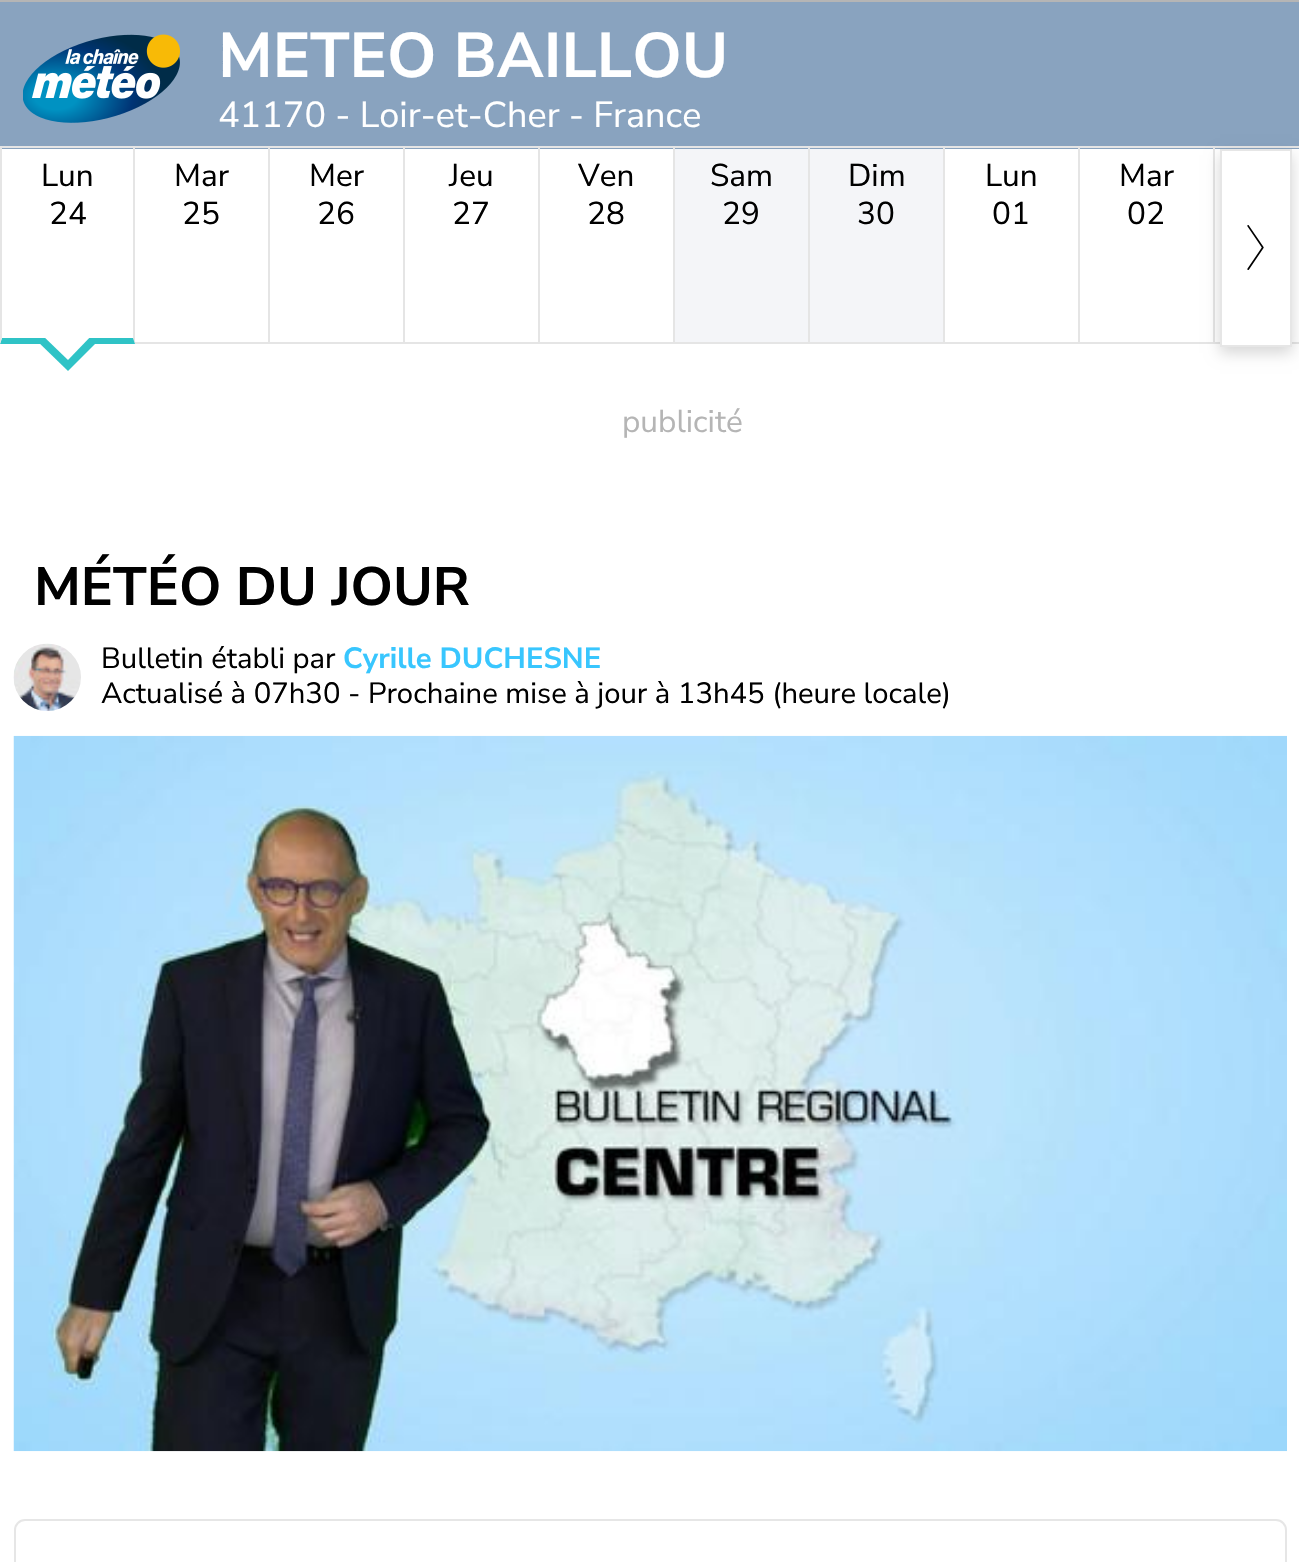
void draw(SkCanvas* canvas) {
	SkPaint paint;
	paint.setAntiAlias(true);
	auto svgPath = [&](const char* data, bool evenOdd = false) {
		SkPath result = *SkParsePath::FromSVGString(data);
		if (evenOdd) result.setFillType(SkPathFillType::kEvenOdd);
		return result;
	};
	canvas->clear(0xff89a3bf);
	paint.setColor(0xffb5b5b5);
	canvas->drawRect(SkRect::MakeXYWH(0, 0, 1299, 2), paint);
	canvas->drawImageRect(SkImages::DeferredFromEncodedData(SkData::MakeFromFileName("img1.png")), SkRect::MakeXYWH(23, 34, 157, 89), SkSamplingOptions());
	SkFont f1(fontMgr->matchFamilyStyle("Nunito Sans", SkFontStyle::Bold()), 63);
	f1.setSubpixel(true);
	paint.setColor(0xffffffff);
	canvas->drawString("METEO BAILLOU", 218, 77, f1, paint);
	SkFont f2(fontMgr->matchFamilyStyle("Nunito Sans", SkFontStyle::Normal()), 36);
	f2.setSubpixel(true);
	canvas->drawString("41170 - Loir-et-Cher - France", 218, 127, f2, paint);
	canvas->drawRect(SkRect::MakeXYWH(2, 149, 131, 189), paint);
	paint.setColor(0xffe5e5e5);
	canvas->drawRect(SkRect::MakeXYWH(0, 146, 1299, 2), paint);
	paint.setColor(0xffffffff);
	canvas->drawRect(SkRect::MakeXYWH(0, 338, 1299, 1224), paint);
	paint.setColor(0xffe5e5e5);
	canvas->drawPath(svgPath("M135 146V344L133 338V148Z"), paint);
	paint.setColor(0xff2fc3c6);
	canvas->drawPath(svgPath("M135 344H0L2 338H133Z"), paint);
	paint.setColor(0xffe5e5e5);
	canvas->drawPath(svgPath("M0 344V146L2 148V338Z"), paint);
	SkFont f3(fontMgr->matchFamilyStyle("Nunito Sans", SkFontStyle::Normal()), 31.5);
	f3.setSubpixel(true);
	paint.setColor(0xff000000);
	canvas->drawString("Lun", 41, 186, f3, paint);
	canvas->drawString("24", 49, 224, f3, paint);
	paint.setColor(0xff2fc3c6);
	canvas->drawPath(svgPath("M34 338H101L68 371Z"), paint);
	paint.setColor(0xffffffff);
	canvas->drawPath(svgPath("M40 333H94L68 360Z"), paint);
	canvas->drawRect(SkRect::MakeXYWH(135, 149, 133, 189), paint);
	paint.setColor(0xffe5e5e5);
	canvas->drawRect(SkRect::MakeXYWH(268, 146, 2, 198), paint);
	canvas->drawRect(SkRect::MakeXYWH(135, 342, 135, 2), paint);
	paint.setColor(0xff000000);
	canvas->drawString("Mar", 174, 186, f3, paint);
	canvas->drawString("25", 182, 224, f3, paint);
	paint.setColor(0xffffffff);
	canvas->drawRect(SkRect::MakeXYWH(270, 149, 133, 189), paint);
	paint.setColor(0xffe5e5e5);
	canvas->drawRect(SkRect::MakeXYWH(403, 146, 2, 198), paint);
	canvas->drawRect(SkRect::MakeXYWH(270, 342, 135, 2), paint);
	paint.setColor(0xff000000);
	canvas->drawString("Mer", 309, 186, f3, paint);
	canvas->drawString("26", 317, 224, f3, paint);
	paint.setColor(0xffffffff);
	canvas->drawRect(SkRect::MakeXYWH(405, 149, 133, 189), paint);
	paint.setColor(0xffe5e5e5);
	canvas->drawRect(SkRect::MakeXYWH(538, 146, 2, 198), paint);
	canvas->drawRect(SkRect::MakeXYWH(405, 342, 135, 2), paint);
	paint.setColor(0xff000000);
	canvas->drawString("Jeu", 449, 186, f3, paint);
	canvas->drawString("27", 452, 224, f3, paint);
	paint.setColor(0xffffffff);
	canvas->drawRect(SkRect::MakeXYWH(540, 149, 133, 189), paint);
	paint.setColor(0xffe5e5e5);
	canvas->drawRect(SkRect::MakeXYWH(673, 146, 2, 198), paint);
	canvas->drawRect(SkRect::MakeXYWH(540, 342, 135, 2), paint);
	paint.setColor(0xff000000);
	canvas->drawString("Ven", 578, 186, f3, paint);
	canvas->drawString("28", 587, 224, f3, paint);
	paint.setColor(0xfff4f5f8);
	canvas->drawRect(SkRect::MakeXYWH(675, 149, 133, 193), paint);
	paint.setColor(0xffe5e5e5);
	canvas->drawRect(SkRect::MakeXYWH(808, 146, 2, 198), paint);
	canvas->drawRect(SkRect::MakeXYWH(675, 342, 135, 2), paint);
	paint.setColor(0xff000000);
	canvas->drawString("Sam", 710, 186, f3, paint);
	canvas->drawString("29", 722, 224, f3, paint);
	paint.setColor(0xfff4f5f8);
	canvas->drawRect(SkRect::MakeXYWH(810, 149, 133, 193), paint);
	paint.setColor(0xffe5e5e5);
	canvas->drawRect(SkRect::MakeXYWH(943, 146, 2, 198), paint);
	canvas->drawRect(SkRect::MakeXYWH(810, 342, 135, 2), paint);
	paint.setColor(0xff000000);
	canvas->drawString("Dim", 848, 186, f3, paint);
	canvas->drawString("30", 857, 224, f3, paint);
	paint.setColor(0xffffffff);
	canvas->drawRect(SkRect::MakeXYWH(945, 149, 133, 189), paint);
	paint.setColor(0xffe5e5e5);
	canvas->drawRect(SkRect::MakeXYWH(1078, 146, 2, 198), paint);
	canvas->drawRect(SkRect::MakeXYWH(945, 342, 135, 2), paint);
	paint.setColor(0xff000000);
	canvas->drawString("Lun", 985, 186, f3, paint);
	canvas->drawString("01", 992, 224, f3, paint);
	paint.setColor(0xffffffff);
	canvas->drawRect(SkRect::MakeXYWH(1080, 149, 133, 189), paint);
	paint.setColor(0xffe5e5e5);
	canvas->drawRect(SkRect::MakeXYWH(1213, 146, 2, 198), paint);
	canvas->drawRect(SkRect::MakeXYWH(1080, 342, 219, 2), paint);
	paint.setColor(0xff000000);
	canvas->drawString("Mar", 1119, 186, f3, paint);
	canvas->drawString("02", 1127, 224, f3, paint);
	paint.setColor(0xffffffff);
	canvas->drawRect(SkRect::MakeXYWH(1215, 149, 84, 189), paint);
	paint.setColor(0x29000000);
	paint.setMaskFilter(SkMaskFilter::MakeBlur(kNormal_SkBlurStyle, 7));
	canvas->drawRect(SkRect::MakeXYWH(1220, 155, 72, 198), paint);
	paint.setMaskFilter(nullptr);
	paint.setColor(0xffffffff);
	canvas->drawRect(SkRect::MakeXYWH(1221, 150, 70, 196), paint);
	paint.setStroke(true);
	paint.setStrokeWidth(2);
	paint.setColor(0xffe6e6e6);
	canvas->drawRect(SkRect::MakeXYWH(1221, 150, 70, 196), paint);
	canvas->drawImageRect(SkImages::DeferredFromEncodedData(SkData::MakeFromFileName("img2.png")), SkRect::MakeXYWH(1247, 225, 17, 45), SkSamplingOptions());
	paint.setStroke(false);
	paint.setColor(0xffb5b5b5);
	canvas->drawString("publicité", 622, 432, f3, paint);
	SkFont f4(fontMgr->matchFamilyStyle("Nunito Sans", SkFontStyle::Bold()), 54);
	f4.setSubpixel(true);
	paint.setColor(0xff000000);
	canvas->drawString("MÉTÉO DU JOUR", 34, 605, f4, paint);
	canvas->drawImageRect(SkImages::DeferredFromEncodedData(SkData::MakeFromFileName("img3.png")), SkRect::MakeXYWH(13, 643, 68, 68), SkSamplingOptions());
	SkFont f5(fontMgr->matchFamilyStyle("Nunito Sans", SkFontStyle::Normal()), 29.25);
	f5.setSubpixel(true);
	canvas->drawString("Bulletin établi par", 101, 668, f5, paint);
	SkFont f6(fontMgr->matchFamilyStyle("Nunito Sans", SkFontStyle::Bold()), 29.25);
	f6.setSubpixel(true);
	paint.setColor(0xff38c6fe);
	canvas->drawString("Cyrille DUCHESNE", 343, 668, f6, paint);
	paint.setColor(0xff000000);
	canvas->drawString("Actualisé à 07h30 - Prochaine mise à jour à 13h45 (heure locale)", 101, 703, f5, paint);
	canvas->drawImageRect(SkImages::DeferredFromEncodedData(SkData::MakeFromFileName("img4.png")), SkRect::MakeXYWH(13, 735, 1274, 717), SkSamplingOptions());
	paint.setStroke(true);
	paint.setColor(0xffe6e6e6);
	canvas->drawRoundRect(SkRect::MakeXYWH(15, 1520, 1271, 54), 10, 10, paint);
}
